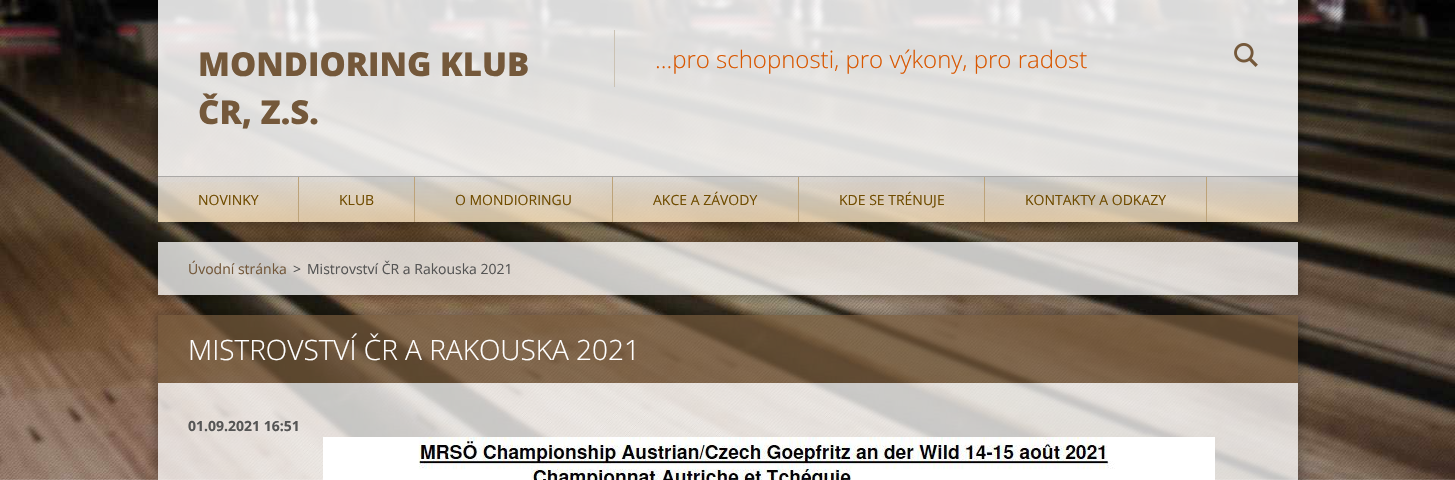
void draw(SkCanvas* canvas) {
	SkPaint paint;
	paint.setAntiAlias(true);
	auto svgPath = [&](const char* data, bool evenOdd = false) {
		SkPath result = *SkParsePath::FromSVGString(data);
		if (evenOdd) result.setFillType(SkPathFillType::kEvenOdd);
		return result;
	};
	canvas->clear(0xffffffff);
	canvas->drawImageRect(SkImages::DeferredFromEncodedData(SkData::MakeFromFileName("img1.png")), SkRect::MakeXYWH(0, 0, 1455, 480), SkSamplingOptions());
	canvas->save();
	canvas->clipPath(svgPath("M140 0H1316V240H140ZM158 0H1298V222H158Z", true), true);
	paint.setColor(0x40000000);
	paint.setMaskFilter(SkMaskFilter::MakeBlur(kNormal_SkBlurStyle, 4.5));
	canvas->drawRect(SkRect::MakeXYWH(155, -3, 1146, 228), paint);
	paint.setMaskFilter(nullptr);
	canvas->restore();
	paint.setColor(0xd9ffffff);
	canvas->drawRect(SkRect::MakeXYWH(158, 0, 1140, 176), paint);
	SkFont f1(fontMgr->matchFamilyStyle("Open Sans", SkFontStyle(800, SkFontStyle::kNormal_Width, SkFontStyle::kUpright_Slant)), 33);
	f1.setSubpixel(true);
	paint.setColor(0xff74583a);
	canvas->drawString("MONDIORING KLUB", 198, 76, f1, paint);
	canvas->drawString("ČR, Z.S.", 198, 124, f1, paint);
	paint.setColor(0xffcbc2b3);
	canvas->drawRect(SkRect::MakeXYWH(614, 30, 1, 57), paint);
	SkFont f2(fontMgr->matchFamilyStyle("Open Sans", SkFontStyle(300, SkFontStyle::kNormal_Width, SkFontStyle::kUpright_Slant)), 24);
	f2.setSubpixel(true);
	paint.setColor(0xffd95700);
	canvas->drawString("...pro schopnosti, pro výkony, pro radost", 655, 68, f2, paint);
	canvas->drawImageRect(SkImages::DeferredFromEncodedData(SkData::MakeFromFileName("img2.png")), SkRect::MakeXYWH(1234, 43, 24, 24), SkSamplingOptions());
	paint.setColor(0xffaaa8a6);
	canvas->drawRect(SkRect::MakeXYWH(158, 176, 1140, 1), paint);
	paint.setColor(0xbfffffff);
	canvas->drawRect(SkRect::MakeXYWH(158, 177, 1140, 45), paint);
	{
		const SkColor colors[] = {0x00ff9c00, 0x30ff9c00};
		const float stops[] = {0, 1};
		const SkPoint ends[] = {{728, 177}, {728, 222}};
		paint.setShader(SkGradientShader::MakeLinear(ends, colors, stops, 2, SkTileMode::kClamp));
		paint.setAlpha(255);
	}
	canvas->drawRect(SkRect::MakeXYWH(158, 182, 1140, 40), paint);
	paint.setShader(nullptr);
	paint.setColor(0xffbda379);
	canvas->drawRect(SkRect::MakeXYWH(298, 177, 1, 45), paint);
	SkFont f3(fontMgr->matchFamilyStyle("Open Sans", SkFontStyle::Normal()), 14);
	f3.setSubpixel(true);
	paint.setColor(0xff704c00);
	canvas->drawString("NOVINKY", 198, 205, f3, paint);
	paint.setColor(0xffbda379);
	canvas->drawRect(SkRect::MakeXYWH(414, 177, 1, 45), paint);
	paint.setColor(0xff704c00);
	canvas->drawString("KLUB", 339, 205, f3, paint);
	paint.setColor(0xffbda379);
	canvas->drawRect(SkRect::MakeXYWH(612, 177, 1, 45), paint);
	paint.setColor(0xff704c00);
	canvas->drawString("O MONDIORINGU", 455, 205, f3, paint);
	paint.setColor(0xffbda379);
	canvas->drawRect(SkRect::MakeXYWH(798, 177, 1, 45), paint);
	paint.setColor(0xff704c00);
	canvas->drawString("AKCE A ZÁVODY", 653, 205, f3, paint);
	paint.setColor(0xffbda379);
	canvas->drawRect(SkRect::MakeXYWH(984, 177, 1, 45), paint);
	paint.setColor(0xff704c00);
	canvas->drawString("KDE SE TRÉNUJE", 839, 205, f3, paint);
	paint.setColor(0xffbda379);
	canvas->drawRect(SkRect::MakeXYWH(1206, 177, 1, 45), paint);
	paint.setColor(0xff704c00);
	canvas->drawString("KONTAKTY A ODKAZY", 1025, 205, f3, paint);
	canvas->save();
	canvas->clipPath(svgPath("M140 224H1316V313H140ZM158 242H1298V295H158Z", true), true);
	paint.setColor(0x40000000);
	paint.setMaskFilter(SkMaskFilter::MakeBlur(kNormal_SkBlurStyle, 4.5));
	canvas->drawRect(SkRect::MakeXYWH(155, 239, 1146, 59), paint);
	paint.setMaskFilter(nullptr);
	canvas->restore();
	paint.setColor(0xbfffffff);
	canvas->drawRect(SkRect::MakeXYWH(158, 242, 1140, 53), paint);
	paint.setColor(0xff74583a);
	canvas->drawString("Úvodní stránka", 188, 274, f3, paint);
	paint.setColor(0xff555555);
	canvas->drawString(">", 293, 274, f3, paint);
	canvas->drawString("Mistrovství ČR a Rakouska 2021", 307, 274, f3, paint);
	canvas->save();
	canvas->clipPath(svgPath("M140 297H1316V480H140ZM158 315H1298V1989H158Z", true), true);
	paint.setColor(0x40000000);
	paint.setMaskFilter(SkMaskFilter::MakeBlur(kNormal_SkBlurStyle, 4.5));
	canvas->drawRect(SkRect::MakeXYWH(155, 312, 1146, 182), paint);
	paint.setMaskFilter(nullptr);
	canvas->restore();
	paint.setColor(0xb574583a);
	canvas->drawRect(SkRect::MakeXYWH(158, 315, 1140, 68), paint);
	SkFont f4(fontMgr->matchFamilyStyle("Open Sans", SkFontStyle(300, SkFontStyle::kNormal_Width, SkFontStyle::kUpright_Slant)), 28);
	f4.setSubpixel(true);
	paint.setColor(0xffffffff);
	canvas->drawString("MISTROVSTVÍ ČR A RAKOUSKA 2021", 188, 360, f4, paint);
	paint.setColor(0xbfffffff);
	canvas->drawRect(SkRect::MakeXYWH(158, 383, 1140, 97), paint);
	SkFont f5(fontMgr->matchFamilyStyle("Open Sans", SkFontStyle::Bold()), 14);
	f5.setSubpixel(true);
	paint.setColor(0xff555555);
	canvas->drawString("01.09.2021 16:51", 188, 431, f5, paint);
	canvas->drawImageRect(SkImages::DeferredFromEncodedData(SkData::MakeFromFileName("img3.png")), SkRect::MakeXYWH(323, 437, 892, 43), SkSamplingOptions());
}
